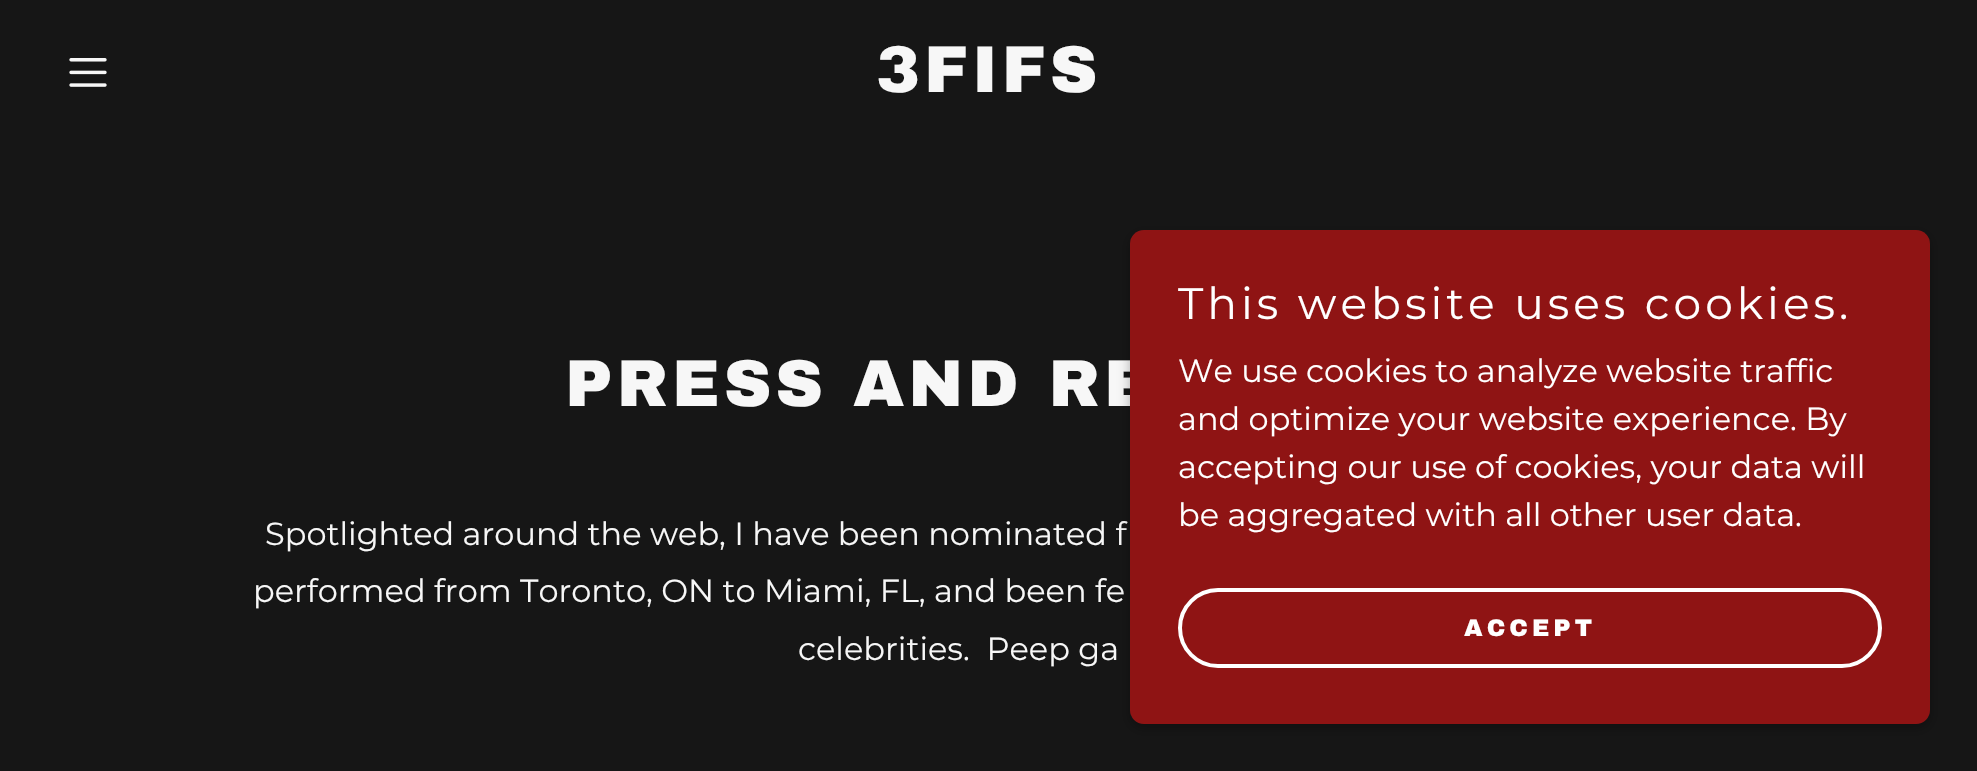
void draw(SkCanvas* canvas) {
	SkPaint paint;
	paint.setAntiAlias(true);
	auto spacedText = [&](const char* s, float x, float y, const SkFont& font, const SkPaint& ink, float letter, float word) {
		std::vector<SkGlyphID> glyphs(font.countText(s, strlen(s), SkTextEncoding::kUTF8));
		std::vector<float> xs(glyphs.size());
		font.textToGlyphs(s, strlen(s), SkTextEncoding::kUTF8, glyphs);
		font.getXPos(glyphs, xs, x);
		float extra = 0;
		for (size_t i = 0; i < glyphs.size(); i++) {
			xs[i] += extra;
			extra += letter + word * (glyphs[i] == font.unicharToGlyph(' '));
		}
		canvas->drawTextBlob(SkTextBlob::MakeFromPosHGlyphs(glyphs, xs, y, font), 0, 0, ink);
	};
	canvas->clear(0xff161616);
	canvas->drawImageRect(SkImages::DeferredFromEncodedData(SkData::MakeFromFileName("img1.png")), SkRect::MakeXYWH(69, 58, 38, 29), SkSamplingOptions());
	SkFont f1(fontMgr->matchFamilyStyle("Archivo Black", SkFontStyle(900, SkFontStyle::kNormal_Width, SkFontStyle::kUpright_Slant)), 66);
	f1.setSubpixel(true);
	paint.setColor(0xfff7f7f7);
	spacedText("3FIFS", 876, 92, f1, paint, 4, 0);
	spacedText("PRESS AND RE", 565, 406, f1, paint, 4, 0);
	SkFont f2(fontMgr->matchFamilyStyle("Montserrat", SkFontStyle::Normal()), 32);
	f2.setSubpixel(true);
	canvas->drawString("Spotlighted around the web, I have been nominated f", 265, 545, f2, paint);
	canvas->drawString("performed from Toronto, ON to Miami, FL, and been fe", 253, 602, f2, paint);
	canvas->drawString("celebrities.  Peep ga", 798, 660, f2, paint);
	paint.setColor(0x4d000000);
	paint.setMaskFilter(SkMaskFilter::MakeBlur(kNormal_SkBlurStyle, 6));
	canvas->drawRoundRect(SkRect::MakeXYWH(1130, 234, 800, 494), 14, 14, paint);
	paint.setMaskFilter(nullptr);
	paint.setColor(0xff8f1414);
	canvas->drawRoundRect(SkRect::MakeXYWH(1130, 230, 800, 494), 14, 14, paint);
	SkFont f3(fontMgr->matchFamilyStyle("Montserrat", SkFontStyle::Normal()), 44);
	f3.setSubpixel(true);
	paint.setColor(0xffffffff);
	spacedText("This website uses cookies.", 1178, 319, f3, paint, 4, 0);
	canvas->drawString("We use cookies to analyze website traffic", 1178, 382, f2, paint);
	canvas->drawString("and optimize your website experience. By", 1178, 430, f2, paint);
	canvas->drawString("accepting our use of cookies, your data will", 1178, 478, f2, paint);
	canvas->drawString("be aggregated with all other user data.", 1178, 526, f2, paint);
	paint.setStroke(true);
	paint.setStrokeWidth(4);
	canvas->drawRoundRect(SkRect::MakeXYWH(1180, 590, 700, 76), 38, 38, paint);
	SkFont f4(fontMgr->matchFamilyStyle("Archivo Black", SkFontStyle(900, SkFontStyle::kNormal_Width, SkFontStyle::kUpright_Slant)), 24);
	f4.setSubpixel(true);
	paint.setStroke(false);
	spacedText("ACCEPT", 1464, 636, f4, paint, 4, 0);
}
